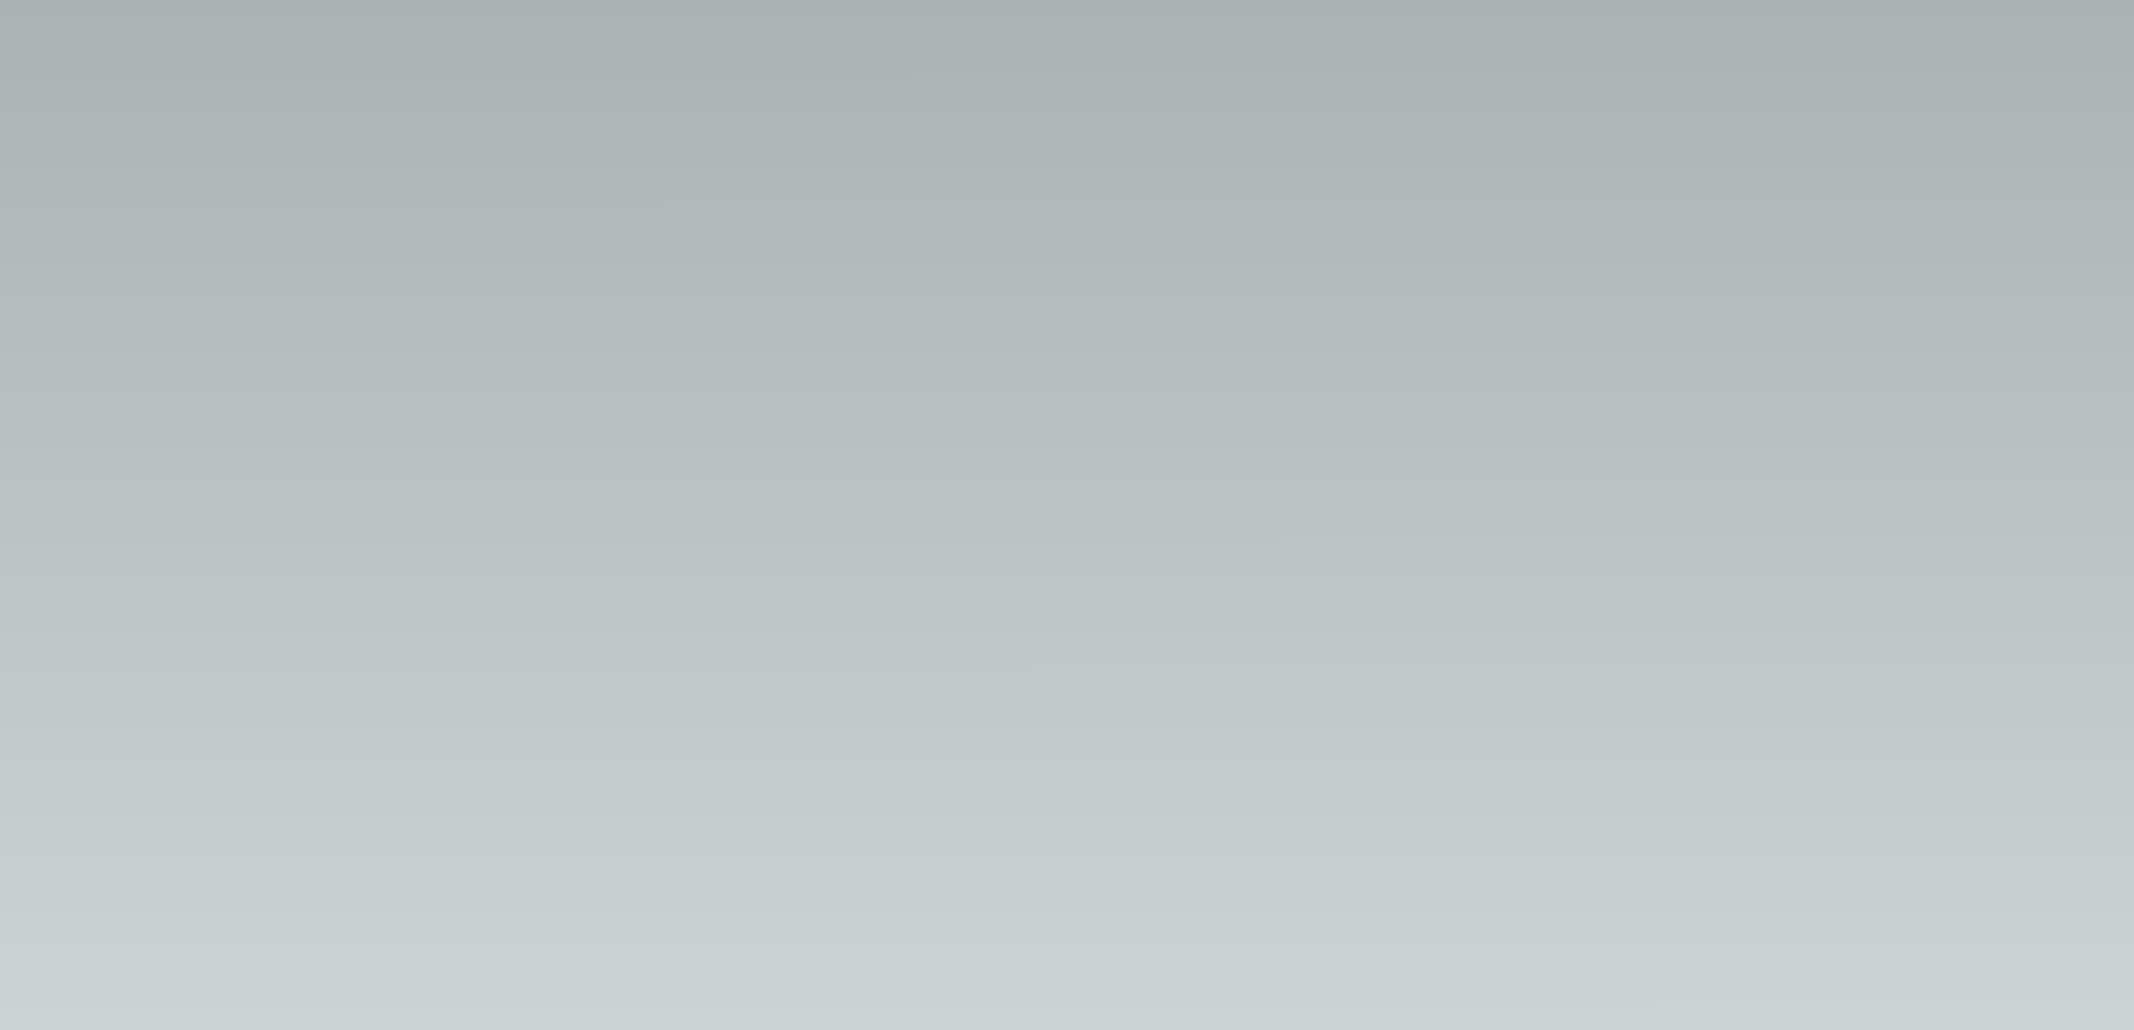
void draw(SkCanvas* canvas) {
	SkPaint paint;
	paint.setAntiAlias(true);
	canvas->clear(0xffffffff);
	{
		const SkColor colors[] = {0xffaab3b3, 0xffd4dcdc};
		const float stops[] = {0, 1};
		const SkPoint ends[] = {{1067, 0}, {1068, 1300}};
		paint.setShader(SkGradientShader::MakeLinear(ends, colors, stops, 2, SkTileMode::kClamp));
		paint.setAlpha(255);
	}
	canvas->drawRect(SkRect::MakeXYWH(0, 0, 2134, 1030), paint);
}
